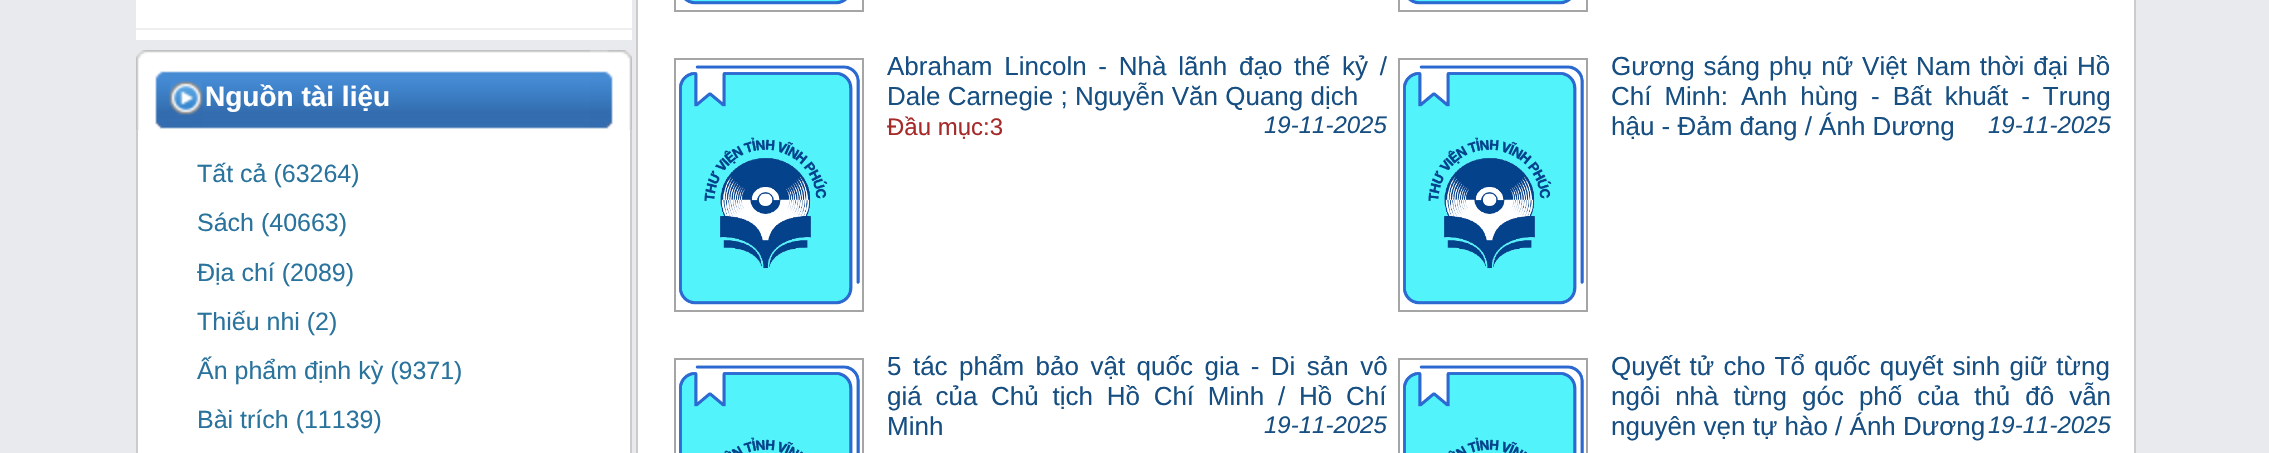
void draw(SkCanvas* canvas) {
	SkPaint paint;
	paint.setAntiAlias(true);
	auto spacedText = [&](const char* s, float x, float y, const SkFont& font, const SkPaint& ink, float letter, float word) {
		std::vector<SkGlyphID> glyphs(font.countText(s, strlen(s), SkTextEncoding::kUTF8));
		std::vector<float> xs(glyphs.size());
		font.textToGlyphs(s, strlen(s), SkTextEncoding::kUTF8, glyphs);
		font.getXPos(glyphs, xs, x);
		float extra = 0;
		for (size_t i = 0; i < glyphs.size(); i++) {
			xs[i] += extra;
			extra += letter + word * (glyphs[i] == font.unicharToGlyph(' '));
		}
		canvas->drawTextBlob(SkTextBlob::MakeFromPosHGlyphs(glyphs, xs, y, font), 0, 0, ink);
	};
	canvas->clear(0xffe9eaed);
	paint.setColor(0xffffffff);
	canvas->drawRect(SkRect::MakeXYWH(136, 0, 496, 28), paint);
	paint.setColor(0xffefefef);
	canvas->drawRect(SkRect::MakeXYWH(136, 28, 496, 2), paint);
	paint.setColor(0xffffffff);
	canvas->drawRect(SkRect::MakeXYWH(136, 30, 496, 10), paint);
	canvas->drawImageRect(SkImages::DeferredFromEncodedData(SkData::MakeFromFileName("img1.png")), SkRect::MakeXYWH(203, 50, 387, 80), SkSamplingOptions());
	canvas->drawImageRect(SkImages::DeferredFromEncodedData(SkData::MakeFromFileName("img2.png")), SkRect::MakeXYWH(590, 50, 42, 80), SkSamplingOptions());
	canvas->drawImageRect(SkImages::DeferredFromEncodedData(SkData::MakeFromFileName("img3.png")), SkRect::MakeXYWH(136, 50, 67, 80), SkSamplingOptions());
	SkFont f1(fontMgr->matchFamilyStyle("Liberation Sans", SkFontStyle::Bold()), 28);
	f1.setSubpixel(true);
	canvas->drawString("Nguồn tài liệu", 205, 106, f1, paint);
	canvas->drawRect(SkRect::MakeXYWH(138, 130, 492, 323), paint);
	paint.setColor(0xffcbcbcb);
	canvas->drawRect(SkRect::MakeXYWH(630, 130, 2, 323), paint);
	canvas->drawRect(SkRect::MakeXYWH(136, 130, 2, 323), paint);
	SkFont f2(fontMgr->matchFamilyStyle("Liberation Sans", SkFontStyle::Normal()), 25);
	f2.setSubpixel(true);
	paint.setColor(0xff29739d);
	canvas->drawString("Tất cả (63264)", 197, 182, f2, paint);
	canvas->drawString("Sách (40663)", 197, 231, f2, paint);
	canvas->drawString("Địa chí (2089)", 197, 281, f2, paint);
	canvas->drawString("Thiếu nhi (2)", 197, 330, f2, paint);
	canvas->drawString("Ấn phẩm định kỳ (9371)", 197, 379, f2, paint);
	canvas->drawString("Bài trích (11139)", 197, 428, f2, paint);
	paint.setColor(0xffffffff);
	canvas->drawRect(SkRect::MakeXYWH(638, 0, 1496, 453), paint);
	paint.setColor(0xffcbcbcb);
	canvas->drawRect(SkRect::MakeXYWH(2134, 0, 2, 453), paint);
	canvas->drawRect(SkRect::MakeXYWH(636, 0, 2, 453), paint);
	paint.setStroke(true);
	paint.setStrokeWidth(2);
	paint.setColor(0xffa5a5a5);
	canvas->drawRect(SkRect::MakeXYWH(675, -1, 188, 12), paint);
	canvas->drawImageRect(SkImages::DeferredFromEncodedData(SkData::MakeFromFileName("img4.png")), SkRect::MakeXYWH(684, 0, 163, 5), SkSamplingOptions());
	canvas->drawRect(SkRect::MakeXYWH(1399, -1, 188, 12), paint);
	canvas->drawImageRect(SkImages::DeferredFromEncodedData(SkData::MakeFromFileName("img4.png")), SkRect::MakeXYWH(1408, 0, 163, 5), SkSamplingOptions());
	canvas->drawRect(SkRect::MakeXYWH(675, 59, 188, 252), paint);
	canvas->drawImageRect(SkImages::DeferredFromEncodedData(SkData::MakeFromFileName("img5.png")), SkRect::MakeXYWH(679, 65, 181, 240), SkSamplingOptions());
	SkFont f3(fontMgr->matchFamilyStyle("Liberation Sans", SkFontStyle::Normal()), 26);
	f3.setSubpixel(true);
	paint.setStroke(false);
	paint.setColor(0xff174f82);
	spacedText("Abraham Lincoln - Nhà lãnh đạo thế kỷ /", 887, 75, f3, paint, 0, 4.5);
	canvas->drawString("Dale Carnegie ; Nguyễn Văn Quang dịch", 887, 105, f3, paint);
	SkFont f4(fontMgr->matchFamilyStyle("Liberation Sans", SkFontStyle::Normal()), 24);
	f4.setSubpixel(true);
	paint.setColor(0xffa52a2a);
	canvas->drawString("Đầu mục:3", 887, 135, f4, paint);
	SkFont f5(fontMgr->matchFamilyStyle("Liberation Sans", SkFontStyle::Italic()), 24);
	f5.setSubpixel(true);
	paint.setColor(0xff174f82);
	canvas->drawString("19-11-2025", 1264, 133, f5, paint);
	paint.setStroke(true);
	paint.setColor(0xffa5a5a5);
	canvas->drawRect(SkRect::MakeXYWH(1399, 59, 188, 252), paint);
	canvas->drawImageRect(SkImages::DeferredFromEncodedData(SkData::MakeFromFileName("img6.png")), SkRect::MakeXYWH(1403, 65, 181, 240), SkSamplingOptions());
	paint.setStroke(false);
	paint.setColor(0xff174f82);
	spacedText("Gương sáng phụ nữ Việt Nam thời đại Hồ", 1611, 75, f3, paint, 0, 1.75);
	spacedText("Chí Minh: Anh hùng - Bất khuất - Trung", 1611, 105, f3, paint, 0, 5.75);
	canvas->drawString("hậu - Đảm đang / Ánh Dương", 1611, 135, f3, paint);
	canvas->drawString("19-11-2025", 1988, 133, f5, paint);
	paint.setStroke(true);
	paint.setColor(0xffa5a5a5);
	canvas->drawRect(SkRect::MakeXYWH(675, 359, 188, 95), paint);
	canvas->drawImageRect(SkImages::DeferredFromEncodedData(SkData::MakeFromFileName("img7.png")), SkRect::MakeXYWH(679, 365, 181, 88), SkSamplingOptions());
	paint.setStroke(false);
	paint.setColor(0xff174f82);
	spacedText("5 tác phẩm bảo vật quốc gia - Di sản vô", 887, 375, f3, paint, 0, 4.25);
	spacedText("giá của Chủ tịch Hồ Chí Minh /", 887, 405, f3, paint, 0, 6.5);
	spacedText("Hồ Chí", 1299, 405, f3, paint, 0, 6.5);
	canvas->drawString("Minh", 887, 435, f3, paint);
	canvas->drawString("19-11-2025", 1264, 433, f5, paint);
	paint.setStroke(true);
	paint.setColor(0xffa5a5a5);
	canvas->drawRect(SkRect::MakeXYWH(1399, 359, 188, 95), paint);
	canvas->drawImageRect(SkImages::DeferredFromEncodedData(SkData::MakeFromFileName("img8.png")), SkRect::MakeXYWH(1403, 365, 181, 88), SkSamplingOptions());
	paint.setStroke(false);
	paint.setColor(0xff174f82);
	spacedText("Quyết tử cho Tổ quốc quyết sinh giữ từng", 1611, 375, f3, paint, 0, 2);
	spacedText("ngôi nhà từng góc phố của thủ đô vẫn", 1611, 405, f3, paint, 0, 7.75);
	canvas->drawString("nguyên vẹn tự hào / Ánh Dương", 1611, 435, f3, paint);
	canvas->drawString("19-11-2025", 1988, 433, f5, paint);
}
